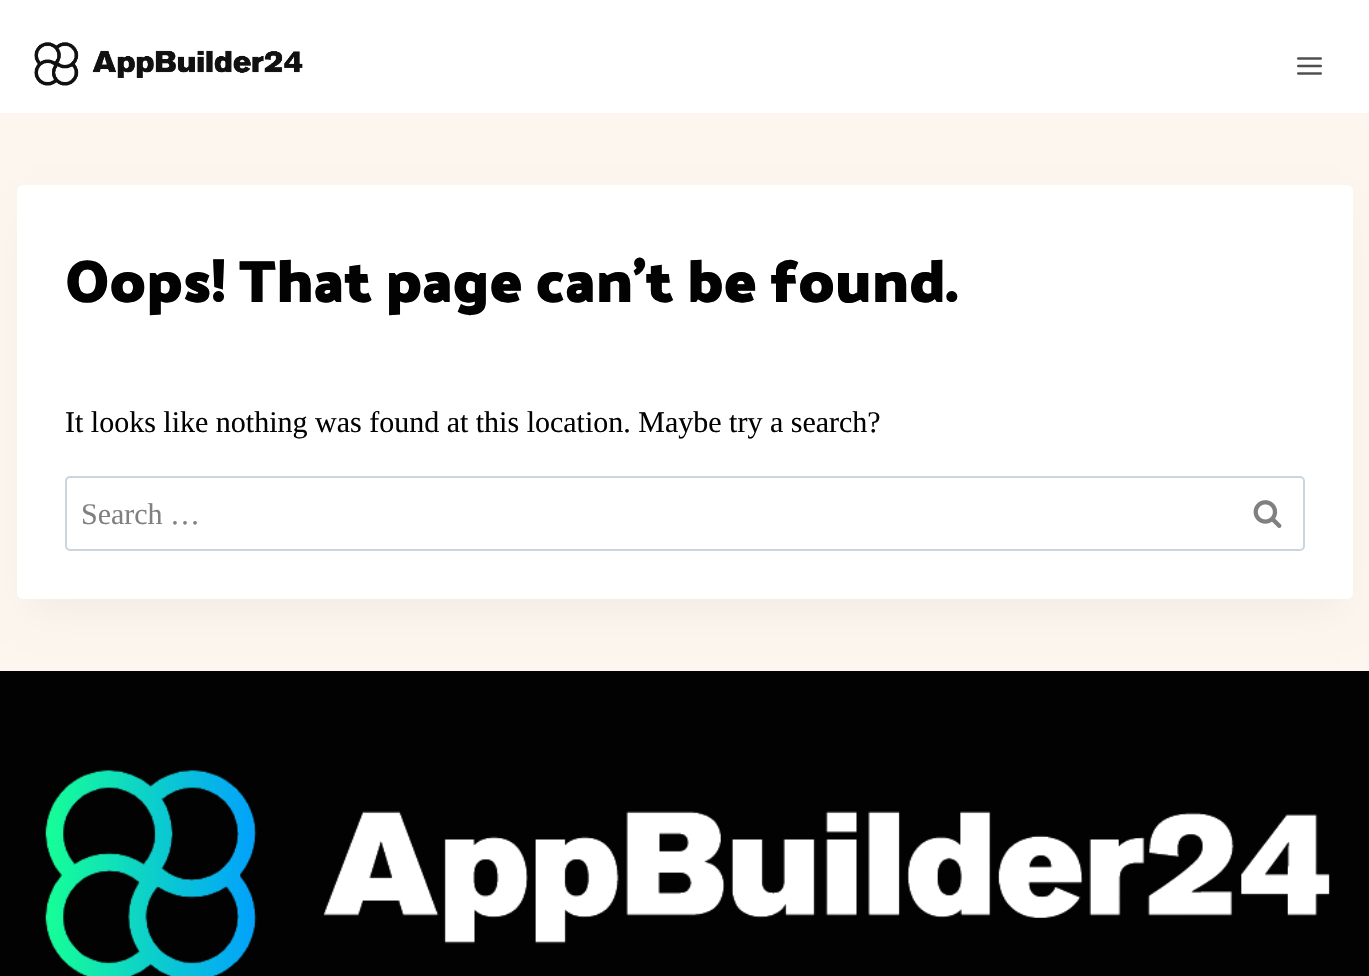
void draw(SkCanvas* canvas) {
	SkPaint paint;
	paint.setAntiAlias(true);
	canvas->clear(0xfffdf6ee);
	paint.setColor(0xffffffff);
	canvas->drawRect(SkRect::MakeXYWH(0, 0, 1369, 113), paint);
	canvas->drawImageRect(SkImages::DeferredFromEncodedData(SkData::MakeFromFileName("img1.png")), SkRect::MakeXYWH(34, 42, 269, 44), SkSamplingOptions());
	canvas->drawImageRect(SkImages::DeferredFromEncodedData(SkData::MakeFromFileName("img2.png")), SkRect::MakeXYWH(1297, 57, 25, 18), SkSamplingOptions());
	paint.setColor(0x0d000000);
	paint.setMaskFilter(SkMaskFilter::MakeBlur(kNormal_SkBlurStyle, 19));
	canvas->drawRect(SkRect::MakeXYWH(32, 222, 1306, 384), paint);
	paint.setMaskFilter(nullptr);
	paint.setColor(0xffffffff);
	canvas->drawRoundRect(SkRect::MakeXYWH(17, 185, 1336, 414), 6, 6, paint);
	SkFont f1(fontMgr->matchFamilyStyle("Palanquin Dark", SkFontStyle::Bold()), 60);
	f1.setSubpixel(true);
	paint.setColor(0xff020202);
	canvas->drawString("Oops! That page can’t be found.", 65, 302, f1, paint);
	SkFont f2(fontMgr->matchFamilyStyle("Liberation Serif", SkFontStyle::Normal()), 30);
	f2.setSubpixel(true);
	canvas->drawString("It looks like nothing was found at this location. Maybe try a search?", 65, 432, f2, paint);
	paint.setStroke(true);
	paint.setStrokeWidth(2);
	paint.setColor(0xffcbd5e0);
	canvas->drawRoundRect(SkRect::MakeXYWH(66, 477, 1238, 73), 4, 4, paint);
	paint.setStroke(false);
	paint.setColor(0xff808080);
	canvas->drawString("Search …", 81, 524, f2, paint);
	canvas->drawImageRect(SkImages::DeferredFromEncodedData(SkData::MakeFromFileName("img3.png")), SkRect::MakeXYWH(1253, 500, 29, 28), SkSamplingOptions());
	paint.setColor(0xff020202);
	canvas->drawRect(SkRect::MakeXYWH(0, 671, 1369, 305), paint);
	canvas->drawImageRect(SkImages::DeferredFromEncodedData(SkData::MakeFromFileName("img4.png")), SkRect::MakeXYWH(45, 770, 1285, 206), SkSamplingOptions());
}
